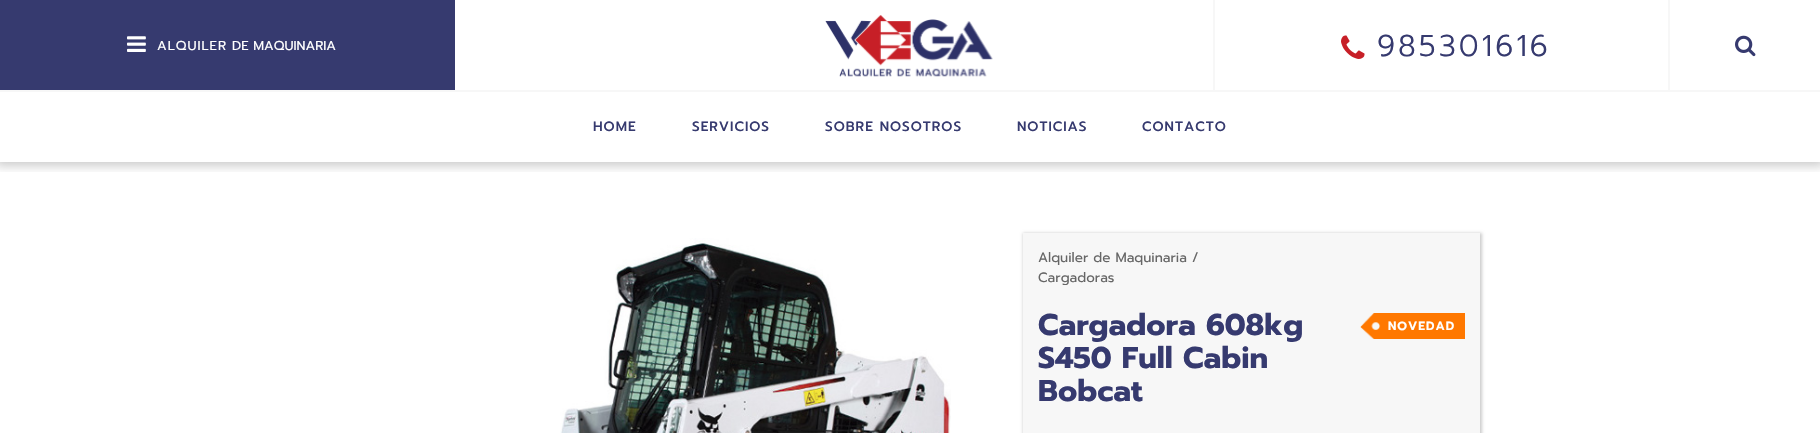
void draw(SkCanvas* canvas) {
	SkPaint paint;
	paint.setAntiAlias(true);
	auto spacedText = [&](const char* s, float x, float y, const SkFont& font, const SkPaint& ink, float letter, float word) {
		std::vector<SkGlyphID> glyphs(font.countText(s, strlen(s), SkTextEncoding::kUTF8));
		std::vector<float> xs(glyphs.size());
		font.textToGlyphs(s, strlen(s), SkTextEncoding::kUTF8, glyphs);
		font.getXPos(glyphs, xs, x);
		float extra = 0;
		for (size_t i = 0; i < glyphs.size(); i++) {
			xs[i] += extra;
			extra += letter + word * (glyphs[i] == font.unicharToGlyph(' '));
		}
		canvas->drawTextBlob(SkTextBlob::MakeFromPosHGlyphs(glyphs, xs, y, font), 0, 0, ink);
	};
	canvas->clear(0xffffffff);
	canvas->save();
	canvas->clipRect(SkRect::MakeXYWH(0, 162, 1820, 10));
	paint.setColor(0x33000000);
	paint.setMaskFilter(SkMaskFilter::MakeBlur(kNormal_SkBlurStyle, 5));
	canvas->drawRect(SkRect::MakeXYWH(-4, -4, 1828, 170), paint);
	paint.setMaskFilter(nullptr);
	canvas->restore();
	paint.setColor(0xff363a6f);
	canvas->drawRect(SkRect::MakeXYWH(0, 0, 455, 90), paint);
	canvas->drawImageRect(SkImages::DeferredFromEncodedData(SkData::MakeFromFileName("img1.png")), SkRect::MakeXYWH(127, 36, 19, 16), SkSamplingOptions());
	SkFont f1(fontMgr->matchFamilyStyle("Prompt", SkFontStyle::Normal()), 13);
	f1.setSubpixel(true);
	paint.setColor(0xffffffff);
	spacedText("ALQUILER", 157, 50, f1, paint, 1, 0);
	canvas->drawString("DE MAQUINARIA", 232, 50, f1, paint);
	canvas->drawImageRect(SkImages::DeferredFromEncodedData(SkData::MakeFromFileName("img2.png")), SkRect::MakeXYWH(825, 15, 168, 62), SkSamplingOptions());
	paint.setColor(0xfff7f7f7);
	canvas->drawRect(SkRect::MakeXYWH(1213, 0, 2, 90), paint);
	canvas->drawImageRect(SkImages::DeferredFromEncodedData(SkData::MakeFromFileName("img3.png")), SkRect::MakeXYWH(1341, 35, 24, 24), SkSamplingOptions());
	SkFont f2(fontMgr->matchFamilyStyle("Prompt", SkFontStyle(300, SkFontStyle::kNormal_Width, SkFontStyle::kUpright_Slant)), 30);
	f2.setSubpixel(true);
	paint.setColor(0xff363a6f);
	spacedText("985301616", 1377, 56, f2, paint, 3, 0);
	paint.setColor(0xfff7f7f7);
	canvas->drawRect(SkRect::MakeXYWH(1668, 0, 2, 90), paint);
	canvas->drawImageRect(SkImages::DeferredFromEncodedData(SkData::MakeFromFileName("img4.png")), SkRect::MakeXYWH(1735, 35, 21, 22), SkSamplingOptions());
	canvas->drawRect(SkRect::MakeXYWH(0, 90, 1820, 2), paint);
	SkFont f3(fontMgr->matchFamilyStyle("Prompt", SkFontStyle(500, SkFontStyle::kNormal_Width, SkFontStyle::kUpright_Slant)), 13.5);
	f3.setSubpixel(true);
	paint.setColor(0xff363a6f);
	spacedText("HOME", 593, 131, f3, paint, 1, 0);
	spacedText("SERVICIOS", 692, 131, f3, paint, 1, 0);
	spacedText("SOBRE NOSOTROS", 825, 131, f3, paint, 1, 0);
	spacedText("NOTICIAS", 1017, 131, f3, paint, 1, 0);
	spacedText("CONTACTO", 1142, 131, f3, paint, 1, 0);
	canvas->drawImageRect(SkImages::DeferredFromEncodedData(SkData::MakeFromFileName("img5.png")), SkRect::MakeXYWH(560, 238, 391, 195), SkSamplingOptions());
	paint.setColor(0x33000000);
	paint.setMaskFilter(SkMaskFilter::MakeBlur(kNormal_SkBlurStyle, 1.5));
	canvas->drawRect(SkRect::MakeXYWH(1023, 233, 459, 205), paint);
	paint.setMaskFilter(nullptr);
	paint.setColor(0xfff7f7f7);
	canvas->drawRect(SkRect::MakeXYWH(1023, 233, 457, 200), paint);
	SkFont f4(fontMgr->matchFamilyStyle("Prompt", SkFontStyle::Normal()), 13.5);
	f4.setSubpixel(true);
	paint.setColor(0xff666666);
	canvas->drawString("Alquiler de Maquinaria /", 1038, 262, f4, paint);
	canvas->drawString("Cargadoras", 1038, 282, f4, paint);
	SkFont f5(fontMgr->matchFamilyStyle("Prompt", SkFontStyle::Bold()), 30);
	f5.setSubpixel(true);
	paint.setColor(0xff363a6f);
	canvas->drawString("Cargadora 608kg", 1038, 335, f5, paint);
	canvas->drawString("S450 Full Cabin", 1038, 368, f5, paint);
	canvas->drawString("Bobcat", 1038, 401, f5, paint);
	paint.setColor(0xffff7800);
	canvas->drawRect(SkRect::MakeXYWH(1381, 313, 84, 26), paint);
	canvas->drawImageRect(SkImages::DeferredFromEncodedData(SkData::MakeFromFileName("img6.png")), SkRect::MakeXYWH(1360, 313, 21, 26), SkSamplingOptions());
	SkFont f6(fontMgr->matchFamilyStyle("Prompt", SkFontStyle(600, SkFontStyle::kNormal_Width, SkFontStyle::kUpright_Slant)), 12);
	f6.setSubpixel(true);
	paint.setColor(0xffffffff);
	spacedText("NOVEDAD", 1388, 330, f6, paint, 1, 0);
}
